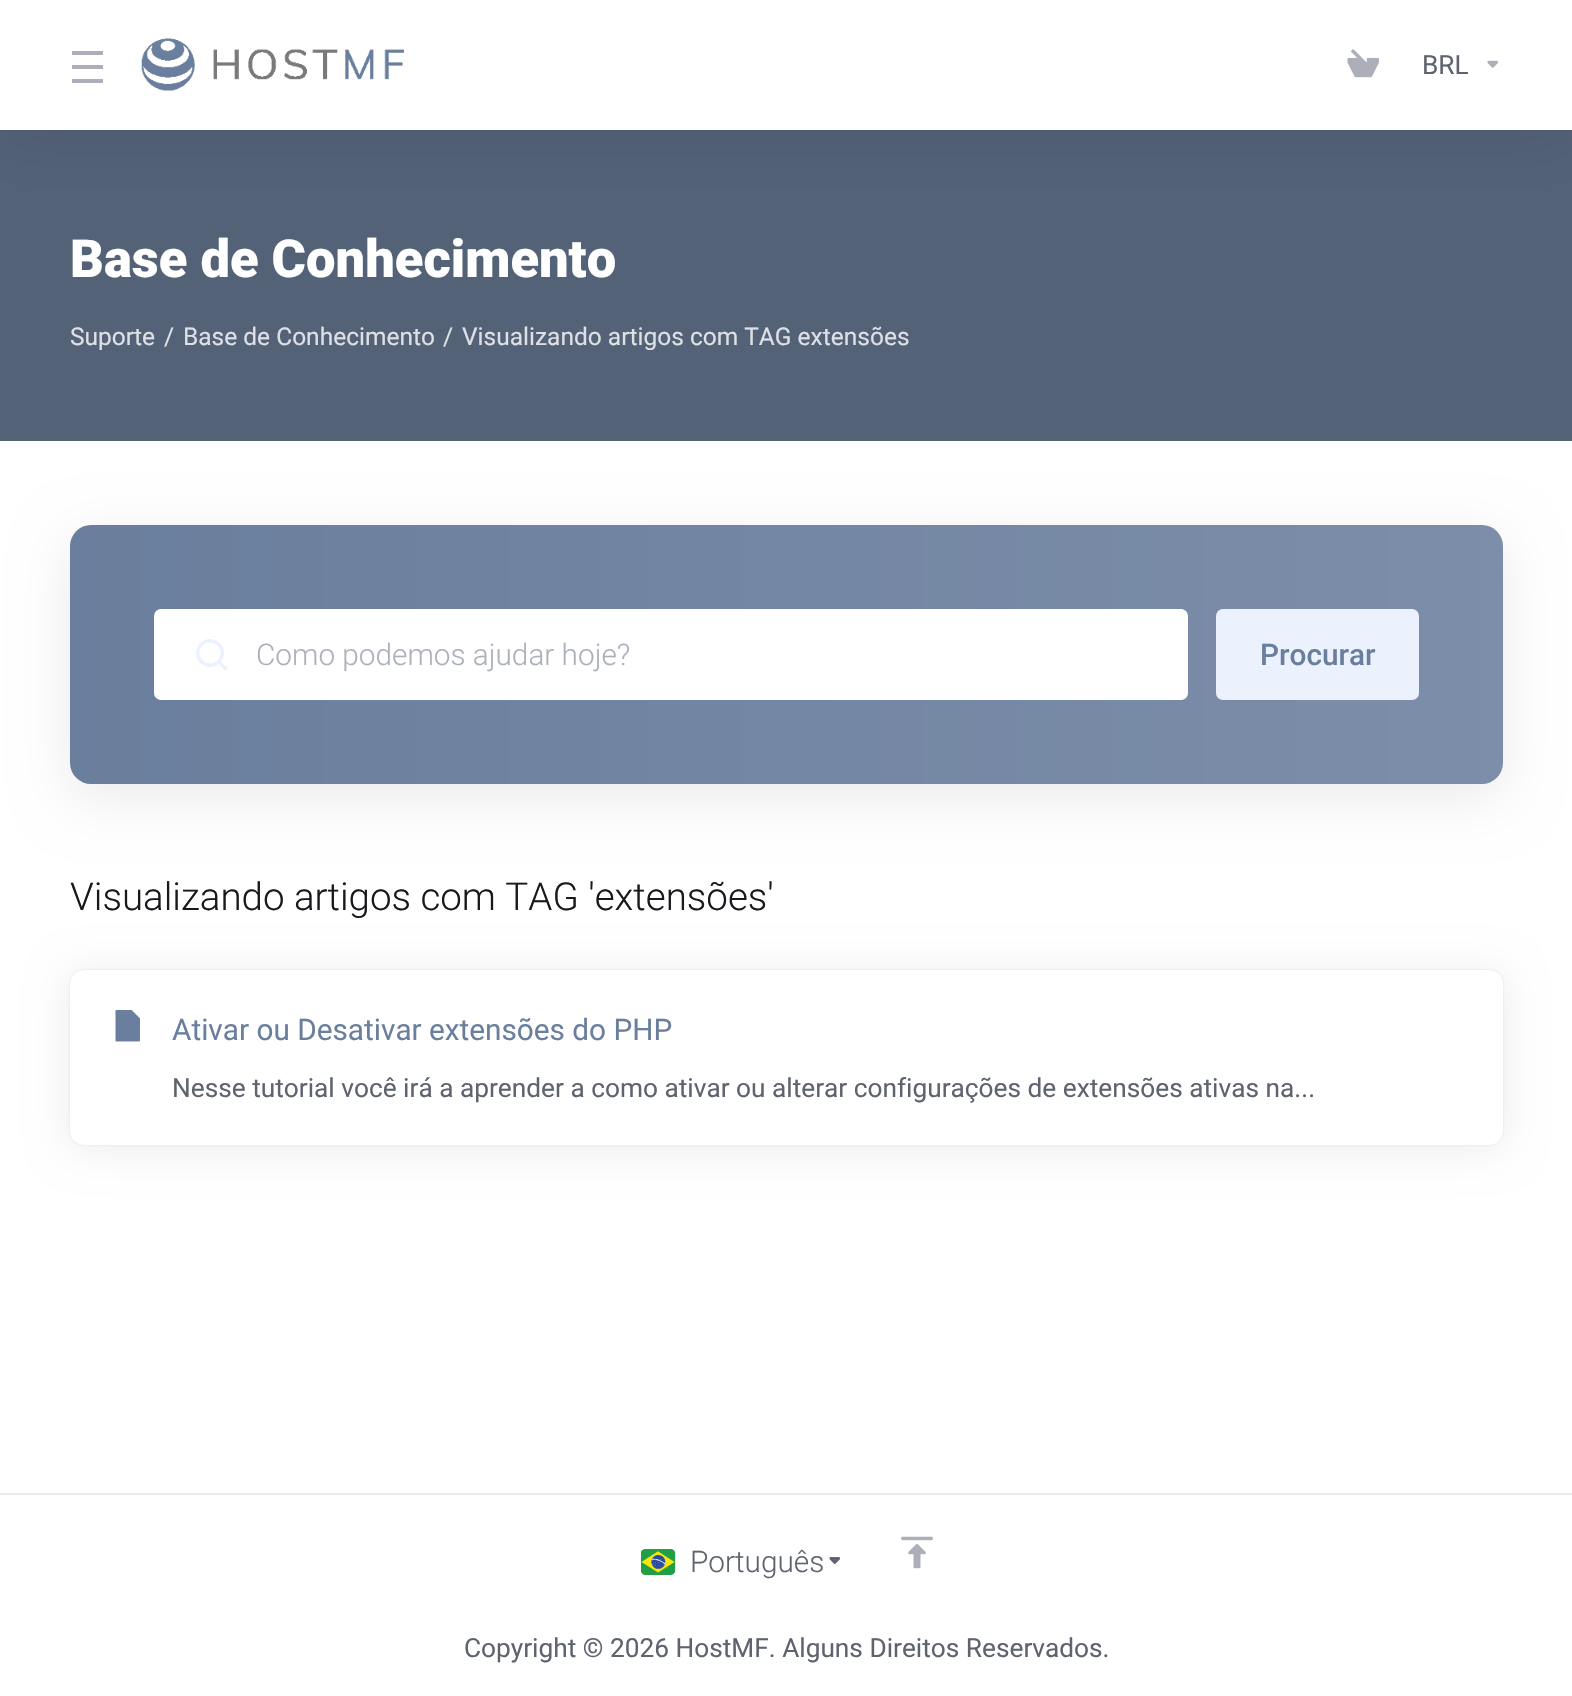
void draw(SkCanvas* canvas) {
	SkPaint paint;
	paint.setAntiAlias(true);
	auto svgPath = [&](const char* data, bool evenOdd = false) {
		SkPath result = *SkParsePath::FromSVGString(data);
		if (evenOdd) result.setFillType(SkPathFillType::kEvenOdd);
		return result;
	};
	canvas->clear(0xffffffff);
	paint.setColor(0xff546278);
	canvas->drawRect(SkRect::MakeXYWH(0, 130, 1572, 311), paint);
	paint.setColor(0x14000000);
	paint.setMaskFilter(SkMaskFilter::MakeBlur(kNormal_SkBlurStyle, 28));
	canvas->drawRect(SkRect::MakeXYWH(0, 14, 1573, 130), paint);
	paint.setMaskFilter(nullptr);
	paint.setColor(0x1f000000);
	paint.setMaskFilter(SkMaskFilter::MakeBlur(kNormal_SkBlurStyle, 1));
	canvas->drawRect(SkRect::MakeXYWH(0, 0, 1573, 130), paint);
	paint.setMaskFilter(nullptr);
	paint.setColor(0xffffffff);
	canvas->drawRect(SkRect::MakeXYWH(0, 0, 1572, 130), paint);
	paint.setColor(0xffacafb9);
	canvas->drawRect(SkRect::MakeXYWH(72, 51, 31, 4), paint);
	canvas->drawRect(SkRect::MakeXYWH(72, 65, 31, 4), paint);
	canvas->drawRect(SkRect::MakeXYWH(72, 79, 31, 4), paint);
	canvas->drawImageRect(SkImages::DeferredFromEncodedData(SkData::MakeFromFileName("img1.png")), SkRect::MakeXYWH(141, 38, 263, 53), SkSamplingOptions());
	canvas->drawImageRect(SkImages::DeferredFromEncodedData(SkData::MakeFromFileName("img2.png")), SkRect::MakeXYWH(1347, 49, 32, 29), SkSamplingOptions());
	SkFont f1(fontMgr->matchFamilyStyle("Roboto", SkFontStyle::Normal()), 26.25);
	f1.setSubpixel(true);
	paint.setColor(0xff5e636e);
	canvas->drawString("BRL", 1422, 74, f1, paint);
	canvas->drawImageRect(SkImages::DeferredFromEncodedData(SkData::MakeFromFileName("img3.png")), SkRect::MakeXYWH(1487, 60, 11, 8), SkSamplingOptions());
	SkFont f2(fontMgr->matchFamilyStyle("Roboto", SkFontStyle(900, SkFontStyle::kNormal_Width, SkFontStyle::kUpright_Slant)), 52.5);
	f2.setSubpixel(true);
	paint.setColor(0xffffffff);
	canvas->drawString("Base de Conhecimento", 70, 277, f2, paint);
	SkFont f3(fontMgr->matchFamilyStyle("Roboto", SkFontStyle::Normal()), 24.5);
	f3.setSubpixel(true);
	paint.setColor(0xffdde0e4);
	canvas->drawString("Suporte", 70, 345, f3, paint);
	canvas->drawString("/", 164, 345, f3, paint);
	canvas->drawString("Base de Conhecimento", 183, 345, f3, paint);
	canvas->drawString("/", 443, 345, f3, paint);
	canvas->drawString("Visualizando artigos com TAG extensões", 462, 345, f3, paint);
	canvas->save();
	canvas->clipPath(svgPath("M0 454H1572V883H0ZM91 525H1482C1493.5 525 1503 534.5 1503 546V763C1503 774.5 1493.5 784 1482 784H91C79.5 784 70 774.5 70 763V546C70 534.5 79.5 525 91 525Z", true), true);
	paint.setColor(0x14000000);
	paint.setMaskFilter(SkMaskFilter::MakeBlur(kNormal_SkBlurStyle, 28));
	canvas->drawRoundRect(SkRect::MakeXYWH(70, 539, 1433, 259), 21, 21, paint);
	paint.setMaskFilter(nullptr);
	canvas->restore();
	{
		const SkColor colors[] = {0xff6a7e9d, 0xe06a7e9d};
		const float stops[] = {0, 1};
		const SkPoint ends[] = {{70, 655}, {1503, 655}};
		paint.setShader(SkGradientShader::MakeLinear(ends, colors, stops, 2, SkTileMode::kClamp));
		paint.setAlpha(255);
	}
	canvas->drawRoundRect(SkRect::MakeXYWH(70, 525, 1433, 259), 21, 21, paint);
	paint.setShader(nullptr);
	paint.setColor(0xffffffff);
	canvas->drawRoundRect(SkRect::MakeXYWH(154, 609, 1034, 91), 7, 7, paint);
	canvas->drawImageRect(SkImages::DeferredFromEncodedData(SkData::MakeFromFileName("img4.png")), SkRect::MakeXYWH(196, 639, 32, 32), SkSamplingOptions());
	SkFont f4(fontMgr->matchFamilyStyle("Roboto", SkFontStyle(300, SkFontStyle::kNormal_Width, SkFontStyle::kUpright_Slant)), 29.75);
	f4.setSubpixel(true);
	paint.setColor(0xffacb0b9);
	canvas->drawString("Como podemos ajudar hoje?", 256, 665, f4, paint);
	paint.setColor(0xffecf2fd);
	canvas->drawRoundRect(SkRect::MakeXYWH(1217, 610, 201, 89), 6, 6, paint);
	paint.setStroke(true);
	paint.setStrokeWidth(2);
	canvas->drawRoundRect(SkRect::MakeXYWH(1217, 610, 201, 89), 6, 6, paint);
	SkFont f5(fontMgr->matchFamilyStyle("Roboto", SkFontStyle(500, SkFontStyle::kNormal_Width, SkFontStyle::kUpright_Slant)), 29.75);
	f5.setSubpixel(true);
	paint.setStroke(false);
	paint.setColor(0xff6a7e9d);
	canvas->drawString("Procurar", 1260, 665, f5, paint);
	paint.setColor(0x14000000);
	paint.setMaskFilter(SkMaskFilter::MakeBlur(kNormal_SkBlurStyle, 21));
	canvas->drawRoundRect(SkRect::MakeXYWH(70, 973, 1433, 175), 14, 14, paint);
	paint.setMaskFilter(nullptr);
	SkFont f6(fontMgr->matchFamilyStyle("Roboto", SkFontStyle(300, SkFontStyle::kNormal_Width, SkFontStyle::kUpright_Slant)), 38.5);
	f6.setSubpixel(true);
	paint.setColor(0xff17191c);
	canvas->drawString("Visualizando artigos com TAG 'extensões'", 70, 910, f6, paint);
	paint.setColor(0x1a000000);
	paint.setMaskFilter(SkMaskFilter::MakeBlur(kNormal_SkBlurStyle, 1));
	canvas->drawRoundRect(SkRect::MakeXYWH(70, 970, 1433, 175), 14, 14, paint);
	paint.setMaskFilter(nullptr);
	paint.setColor(0xffffffff);
	canvas->drawRoundRect(SkRect::MakeXYWH(70, 970, 1433, 175), 14, 14, paint);
	canvas->drawImageRect(SkImages::DeferredFromEncodedData(SkData::MakeFromFileName("img5.png")), SkRect::MakeXYWH(115, 1010, 25, 32), SkSamplingOptions());
	SkFont f7(fontMgr->matchFamilyStyle("Roboto", SkFontStyle::Normal()), 29.75);
	f7.setSubpixel(true);
	paint.setColor(0xff6a7e9d);
	canvas->drawString("Ativar ou Desativar extensões do PHP", 172, 1040, f7, paint);
	paint.setColor(0xff5e636e);
	canvas->drawString("Nesse tutorial você irá a aprender a como ativar ou alterar configurações de extensões ativas na...", 172, 1097, f1, paint);
	paint.setColor(0xffe9eaec);
	canvas->drawRect(SkRect::MakeXYWH(0, 1493, 1572, 2), paint);
	canvas->drawImageRect(SkImages::DeferredFromEncodedData(SkData::MakeFromFileName("img6.png")), SkRect::MakeXYWH(641, 1549, 35, 26), SkSamplingOptions());
	paint.setColor(0xff5e636e);
	canvas->drawString("Português", 690, 1572, f4, paint);
	canvas->drawImageRect(SkImages::DeferredFromEncodedData(SkData::MakeFromFileName("img7.png")), SkRect::MakeXYWH(829, 1557, 11, 7), SkSamplingOptions());
	canvas->drawImageRect(SkImages::DeferredFromEncodedData(SkData::MakeFromFileName("img8.png")), SkRect::MakeXYWH(901, 1536, 32, 33), SkSamplingOptions());
	canvas->drawString("Copyright © 2026 HostMF. Alguns Direitos Reservados.", 464, 1657, f1, paint);
}
